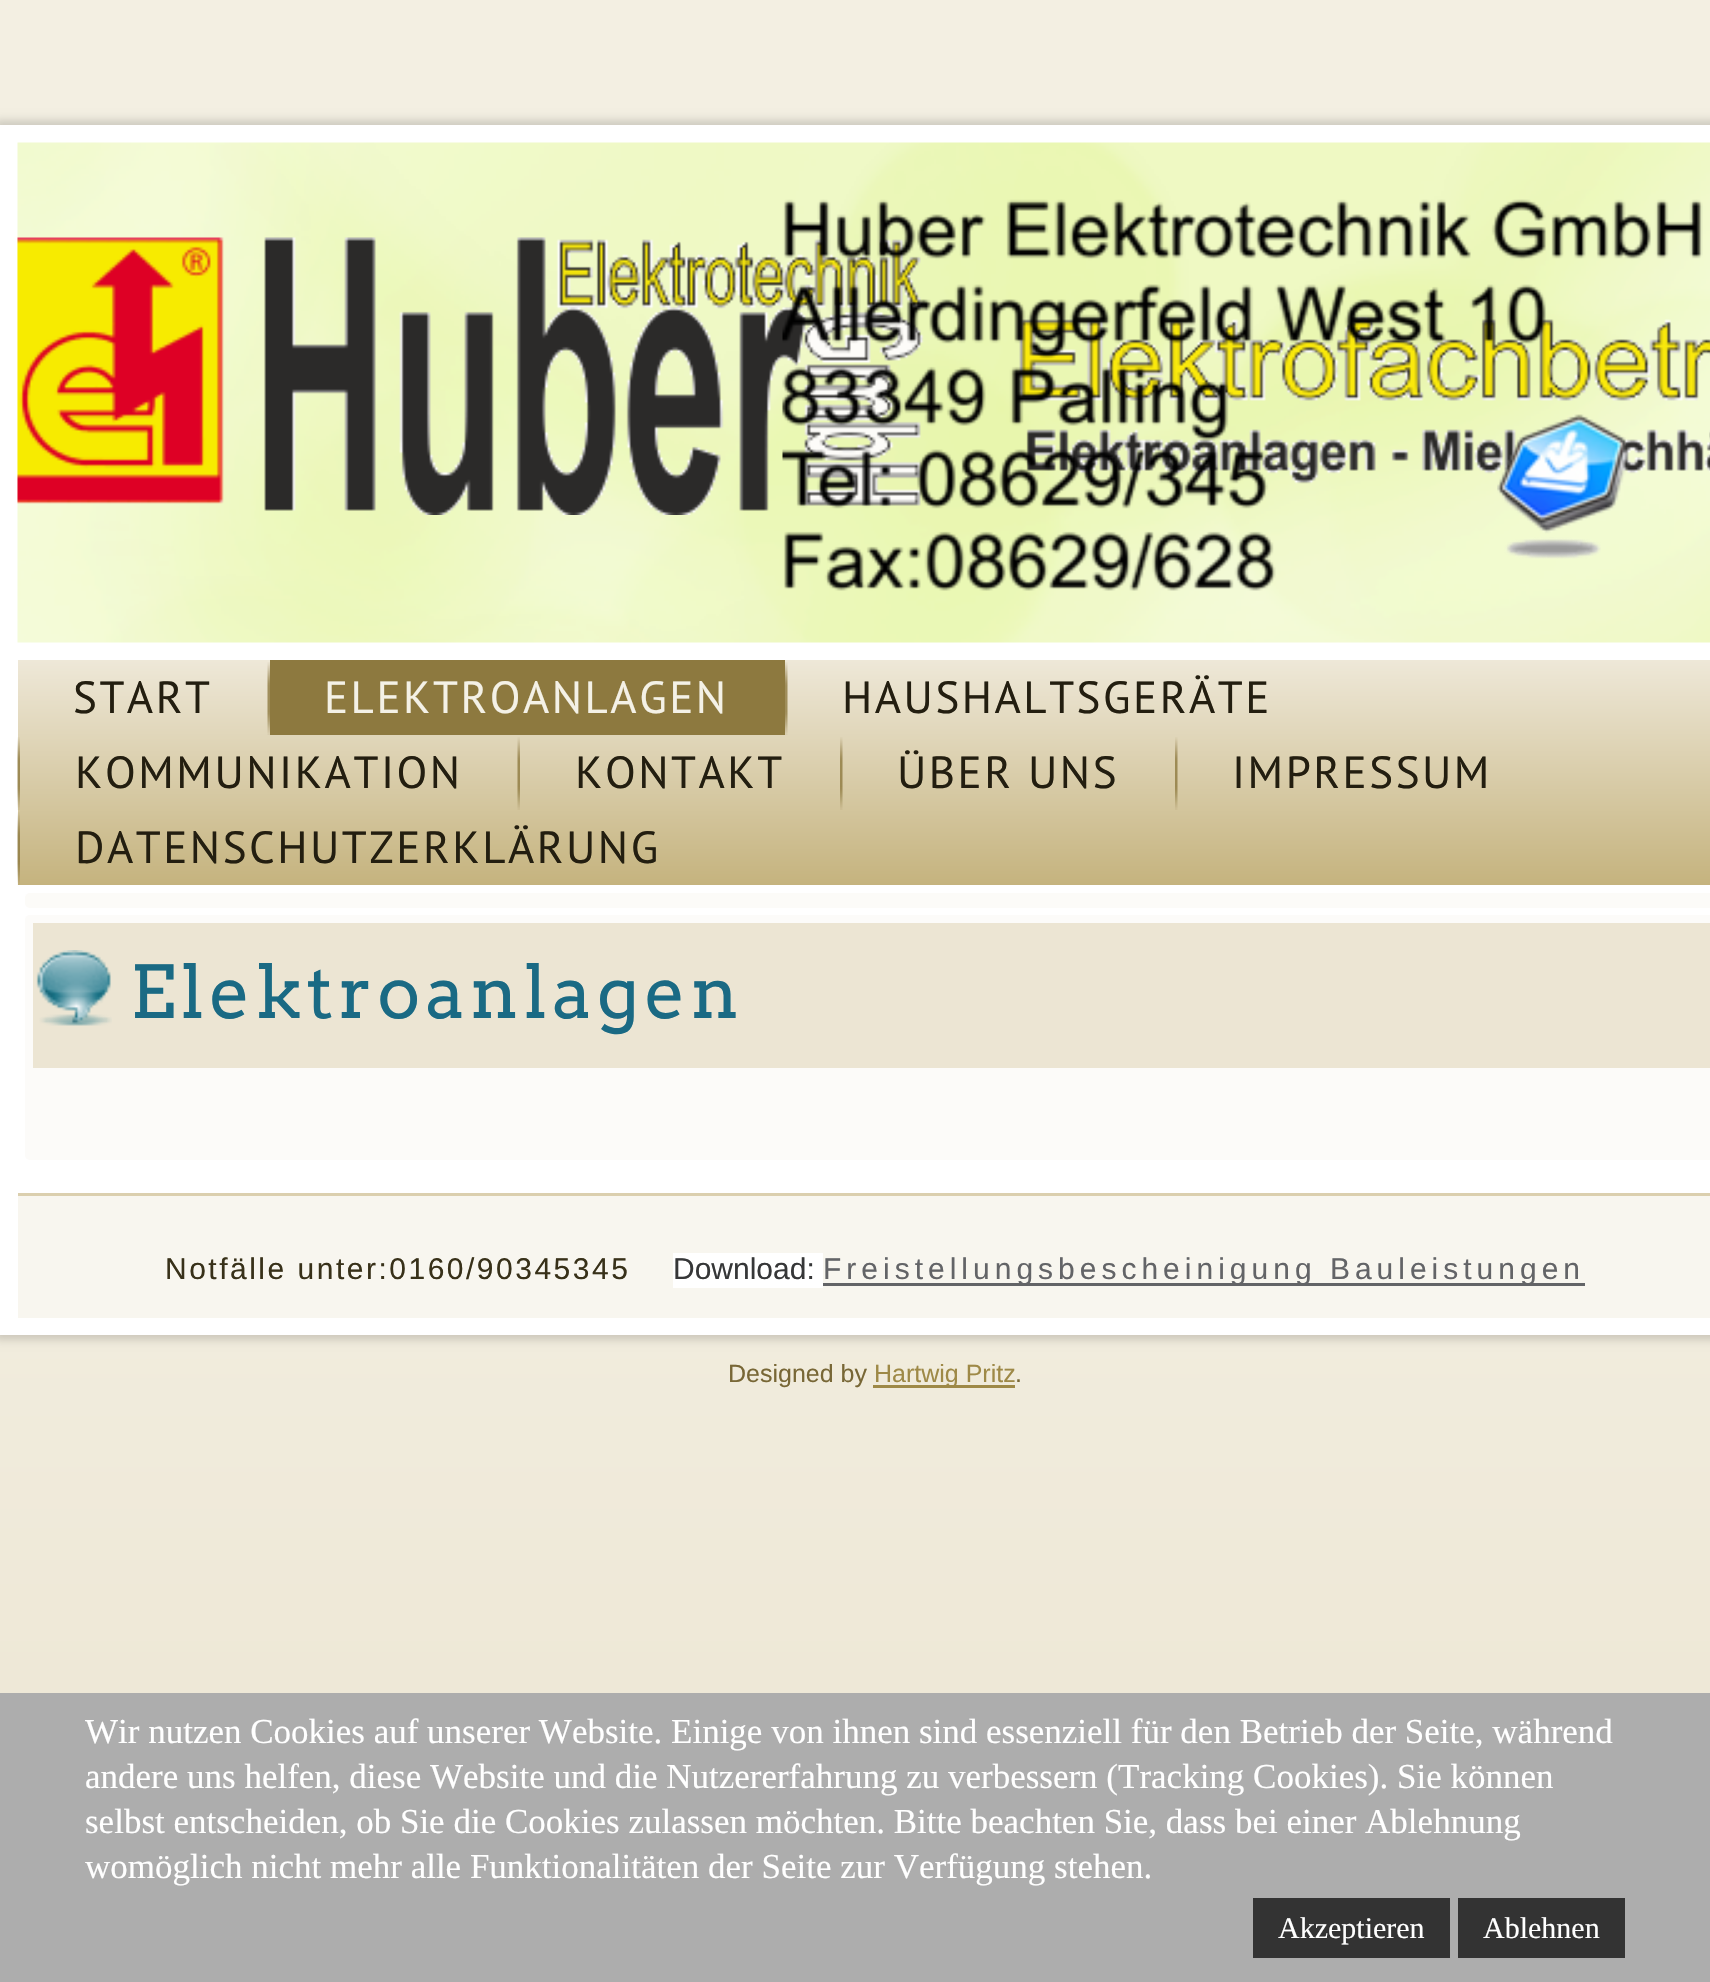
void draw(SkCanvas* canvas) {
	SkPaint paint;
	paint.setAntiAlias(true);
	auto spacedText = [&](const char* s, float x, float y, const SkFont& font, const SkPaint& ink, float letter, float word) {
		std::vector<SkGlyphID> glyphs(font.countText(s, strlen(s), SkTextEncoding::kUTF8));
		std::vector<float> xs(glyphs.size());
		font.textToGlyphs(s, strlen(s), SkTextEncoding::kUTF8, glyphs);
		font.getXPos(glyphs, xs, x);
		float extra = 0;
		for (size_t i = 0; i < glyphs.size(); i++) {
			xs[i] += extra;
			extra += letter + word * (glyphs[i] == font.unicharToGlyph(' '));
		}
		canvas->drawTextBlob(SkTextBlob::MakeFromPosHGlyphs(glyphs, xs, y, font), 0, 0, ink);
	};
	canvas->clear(0xffffffff);
	{
		const SkColor colors[] = {0xfff3efe2, 0xfff3efe2, 0xffe7dec6};
		const float stops[] = {0, 0.4, 1};
		const SkPoint ends[] = {{855, 0}, {855, 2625}};
		paint.setShader(SkGradientShader::MakeLinear(ends, colors, stops, 3, SkTileMode::kClamp));
		paint.setAlpha(255);
	}
	canvas->drawRect(SkRect::MakeXYWH(0, 0, 1710, 1693), paint);
	paint.setShader(nullptr);
	paint.setColor(0x26000000);
	paint.setMaskFilter(SkMaskFilter::MakeBlur(kNormal_SkBlurStyle, 4));
	canvas->drawRect(SkRect::MakeXYWH(-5, 120, 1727, 1220), paint);
	paint.setMaskFilter(nullptr);
	paint.setColor(0xffffffff);
	canvas->drawRect(SkRect::MakeXYWH(0, 125, 1710, 1210), paint);
	canvas->drawImageRect(SkImages::DeferredFromEncodedData(SkData::MakeFromFileName("img1.png")), SkRect::MakeXYWH(17, 142, 1693, 501), SkSamplingOptions());
	canvas->drawImageRect(SkImages::DeferredFromEncodedData(SkData::MakeFromFileName("img3.png")), SkRect::MakeXYWH(17, 237, 1693, 278), SkSamplingOptions());
	canvas->drawImageRect(SkImages::DeferredFromEncodedData(SkData::MakeFromFileName("img2.png")), SkRect::MakeXYWH(782, 199, 921, 392), SkSamplingOptions());
	canvas->drawImageRect(SkImages::DeferredFromEncodedData(SkData::MakeFromFileName("img4.png")), SkRect::MakeXYWH(1497, 414, 132, 145), SkSamplingOptions());
	{
		const SkColor colors[] = {0xffeee8d8, 0xffc5b37e};
		const float stops[] = {0, 1};
		const SkPoint ends[] = {{875, 660}, {875, 885}};
		paint.setShader(SkGradientShader::MakeLinear(ends, colors, stops, 2, SkTileMode::kClamp));
		paint.setAlpha(255);
	}
	canvas->drawRect(SkRect::MakeXYWH(18, 660, 1692, 225), paint);
	SkFont f1(fontMgr->matchFamilyStyle("PT Sans", SkFontStyle::Normal()), 45);
	f1.setSubpixel(true);
	paint.setShader(nullptr);
	paint.setColor(0xff231e10);
	spacedText("START", 73, 713, f1, paint, 2.5, 0);
	canvas->drawImageRect(SkImages::DeferredFromEncodedData(SkData::MakeFromFileName("img5.png")), SkRect::MakeXYWH(267, 662, 3, 73), SkSamplingOptions());
	paint.setColor(0xff8d793f);
	canvas->drawRect(SkRect::MakeXYWH(270, 660, 515, 75), paint);
	paint.setColor(0xfff4f1e6);
	spacedText("ELEKTROANLAGEN", 324, 713, f1, paint, 2.5, 0);
	canvas->drawImageRect(SkImages::DeferredFromEncodedData(SkData::MakeFromFileName("img6.png")), SkRect::MakeXYWH(785, 662, 3, 73), SkSamplingOptions());
	paint.setColor(0xff231e10);
	spacedText("HAUSHALTSGERÄTE", 842, 713, f1, paint, 2.5, 0);
	canvas->drawImageRect(SkImages::DeferredFromEncodedData(SkData::MakeFromFileName("img7.png")), SkRect::MakeXYWH(17, 737, 3, 73), SkSamplingOptions());
	spacedText("KOMMUNIKATION", 75, 788, f1, paint, 2.5, 0);
	canvas->drawImageRect(SkImages::DeferredFromEncodedData(SkData::MakeFromFileName("img8.png")), SkRect::MakeXYWH(517, 737, 3, 73), SkSamplingOptions());
	spacedText("KONTAKT", 575, 788, f1, paint, 2.5, 0);
	canvas->drawImageRect(SkImages::DeferredFromEncodedData(SkData::MakeFromFileName("img9.png")), SkRect::MakeXYWH(840, 737, 3, 73), SkSamplingOptions());
	spacedText("ÜBER UNS", 897, 788, f1, paint, 2.5, 0);
	canvas->drawImageRect(SkImages::DeferredFromEncodedData(SkData::MakeFromFileName("img9.png")), SkRect::MakeXYWH(1175, 737, 3, 73), SkSamplingOptions());
	spacedText("IMPRESSUM", 1232, 788, f1, paint, 2.5, 0);
	canvas->drawImageRect(SkImages::DeferredFromEncodedData(SkData::MakeFromFileName("img10.png")), SkRect::MakeXYWH(17, 812, 3, 73), SkSamplingOptions());
	spacedText("DATENSCHUTZERKLÄRUNG", 75, 863, f1, paint, 2.5, 0);
	paint.setColor(0xfffcfbf8);
	canvas->drawRoundRect(SkRect::MakeXYWH(25, 893, 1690, 15), 5, 5, paint);
	paint.setColor(0xfffcfbf9);
	canvas->drawRoundRect(SkRect::MakeXYWH(25, 915, 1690, 245), 5, 5, paint);
	paint.setColor(0xffece5d3);
	canvas->drawRect(SkRect::MakeXYWH(33, 923, 1677, 145), paint);
	canvas->drawImageRect(SkImages::DeferredFromEncodedData(SkData::MakeFromFileName("img11.png")), SkRect::MakeXYWH(36, 950, 76, 76), SkSamplingOptions());
	SkFont f2(fontMgr->matchFamilyStyle("Arvo", SkFontStyle::Normal()), 72.5);
	f2.setSubpixel(true);
	paint.setColor(0xff1a6a84);
	spacedText("Elektroanlagen", 130, 1018, f2, paint, 5, 0);
	paint.setColor(0xfff8f6ef);
	canvas->drawRect(SkRect::MakeXYWH(18, 1196, 1692, 122), paint);
	paint.setColor(0xffdbcfae);
	canvas->drawRect(SkRect::MakeXYWH(18, 1193, 1692, 3), paint);
	SkFont f3(fontMgr->matchFamilyStyle("Liberation Sans", SkFontStyle::Normal()), 30);
	f3.setSubpixel(true);
	paint.setColor(0xff383119);
	spacedText("Notfälle unter:0160/90345345", 165, 1279, f3, paint, 2.5, 0);
	paint.setColor(0xffffffff);
	canvas->drawRect(SkRect::MakeXYWH(673, 1253, 150, 35), paint);
	paint.setColor(0xff363738);
	canvas->drawString("Download:", 673, 1279, f3, paint);
	paint.setColor(0xff636467);
	canvas->drawRect(SkRect::MakeXYWH(823, 1283, 762, 3), paint);
	spacedText("Freistellungsbescheinigung Bauleistungen", 823, 1279, f3, paint, 5, 0);
	SkFont f4(fontMgr->matchFamilyStyle("Liberation Sans", SkFontStyle::Normal()), 25);
	f4.setSubpixel(true);
	paint.setColor(0xff786736);
	canvas->drawString("Designed by", 728, 1382, f4, paint);
	paint.setColor(0xff9e8947);
	canvas->drawRect(SkRect::MakeXYWH(873, 1385, 142, 3), paint);
	canvas->drawString("Hartwig Pritz", 874, 1382, f4, paint);
	paint.setColor(0xff786736);
	canvas->drawString(".", 1015, 1382, f4, paint);
	paint.setColor(0xffadadad);
	canvas->drawRect(SkRect::MakeXYWH(0, 1693, 1710, 289), paint);
	SkFont f5(fontMgr->matchFamilyStyle("Liberation Serif", SkFontStyle::Normal()), 35);
	f5.setSubpixel(true);
	paint.setColor(0xffffffff);
	canvas->drawString("Wir nutzen Cookies auf unserer Website. Einige von ihnen sind essenziell für den Betrieb der Seite, während", 85, 1743, f5, paint);
	canvas->drawString("andere uns helfen, diese Website und die Nutzererfahrung zu verbessern (Tracking Cookies). Sie können", 85, 1788, f5, paint);
	canvas->drawString("selbst entscheiden, ob Sie die Cookies zulassen möchten. Bitte beachten Sie, dass bei einer Ablehnung", 85, 1833, f5, paint);
	canvas->drawString("womöglich nicht mehr alle Funktionalitäten der Seite zur Verfügung stehen.", 85, 1878, f5, paint);
	paint.setColor(0xff333333);
	canvas->drawRect(SkRect::MakeXYWH(1253, 1898, 197, 60), paint);
	SkFont f6(fontMgr->matchFamilyStyle("Liberation Serif", SkFontStyle::Normal()), 30);
	f6.setSubpixel(true);
	paint.setColor(0xffffffff);
	canvas->drawString("Akzeptieren", 1278, 1938, f6, paint);
	paint.setColor(0xff333333);
	canvas->drawRect(SkRect::MakeXYWH(1458, 1898, 167, 60), paint);
	paint.setColor(0xffffffff);
	canvas->drawString("Ablehnen", 1483, 1938, f6, paint);
}
